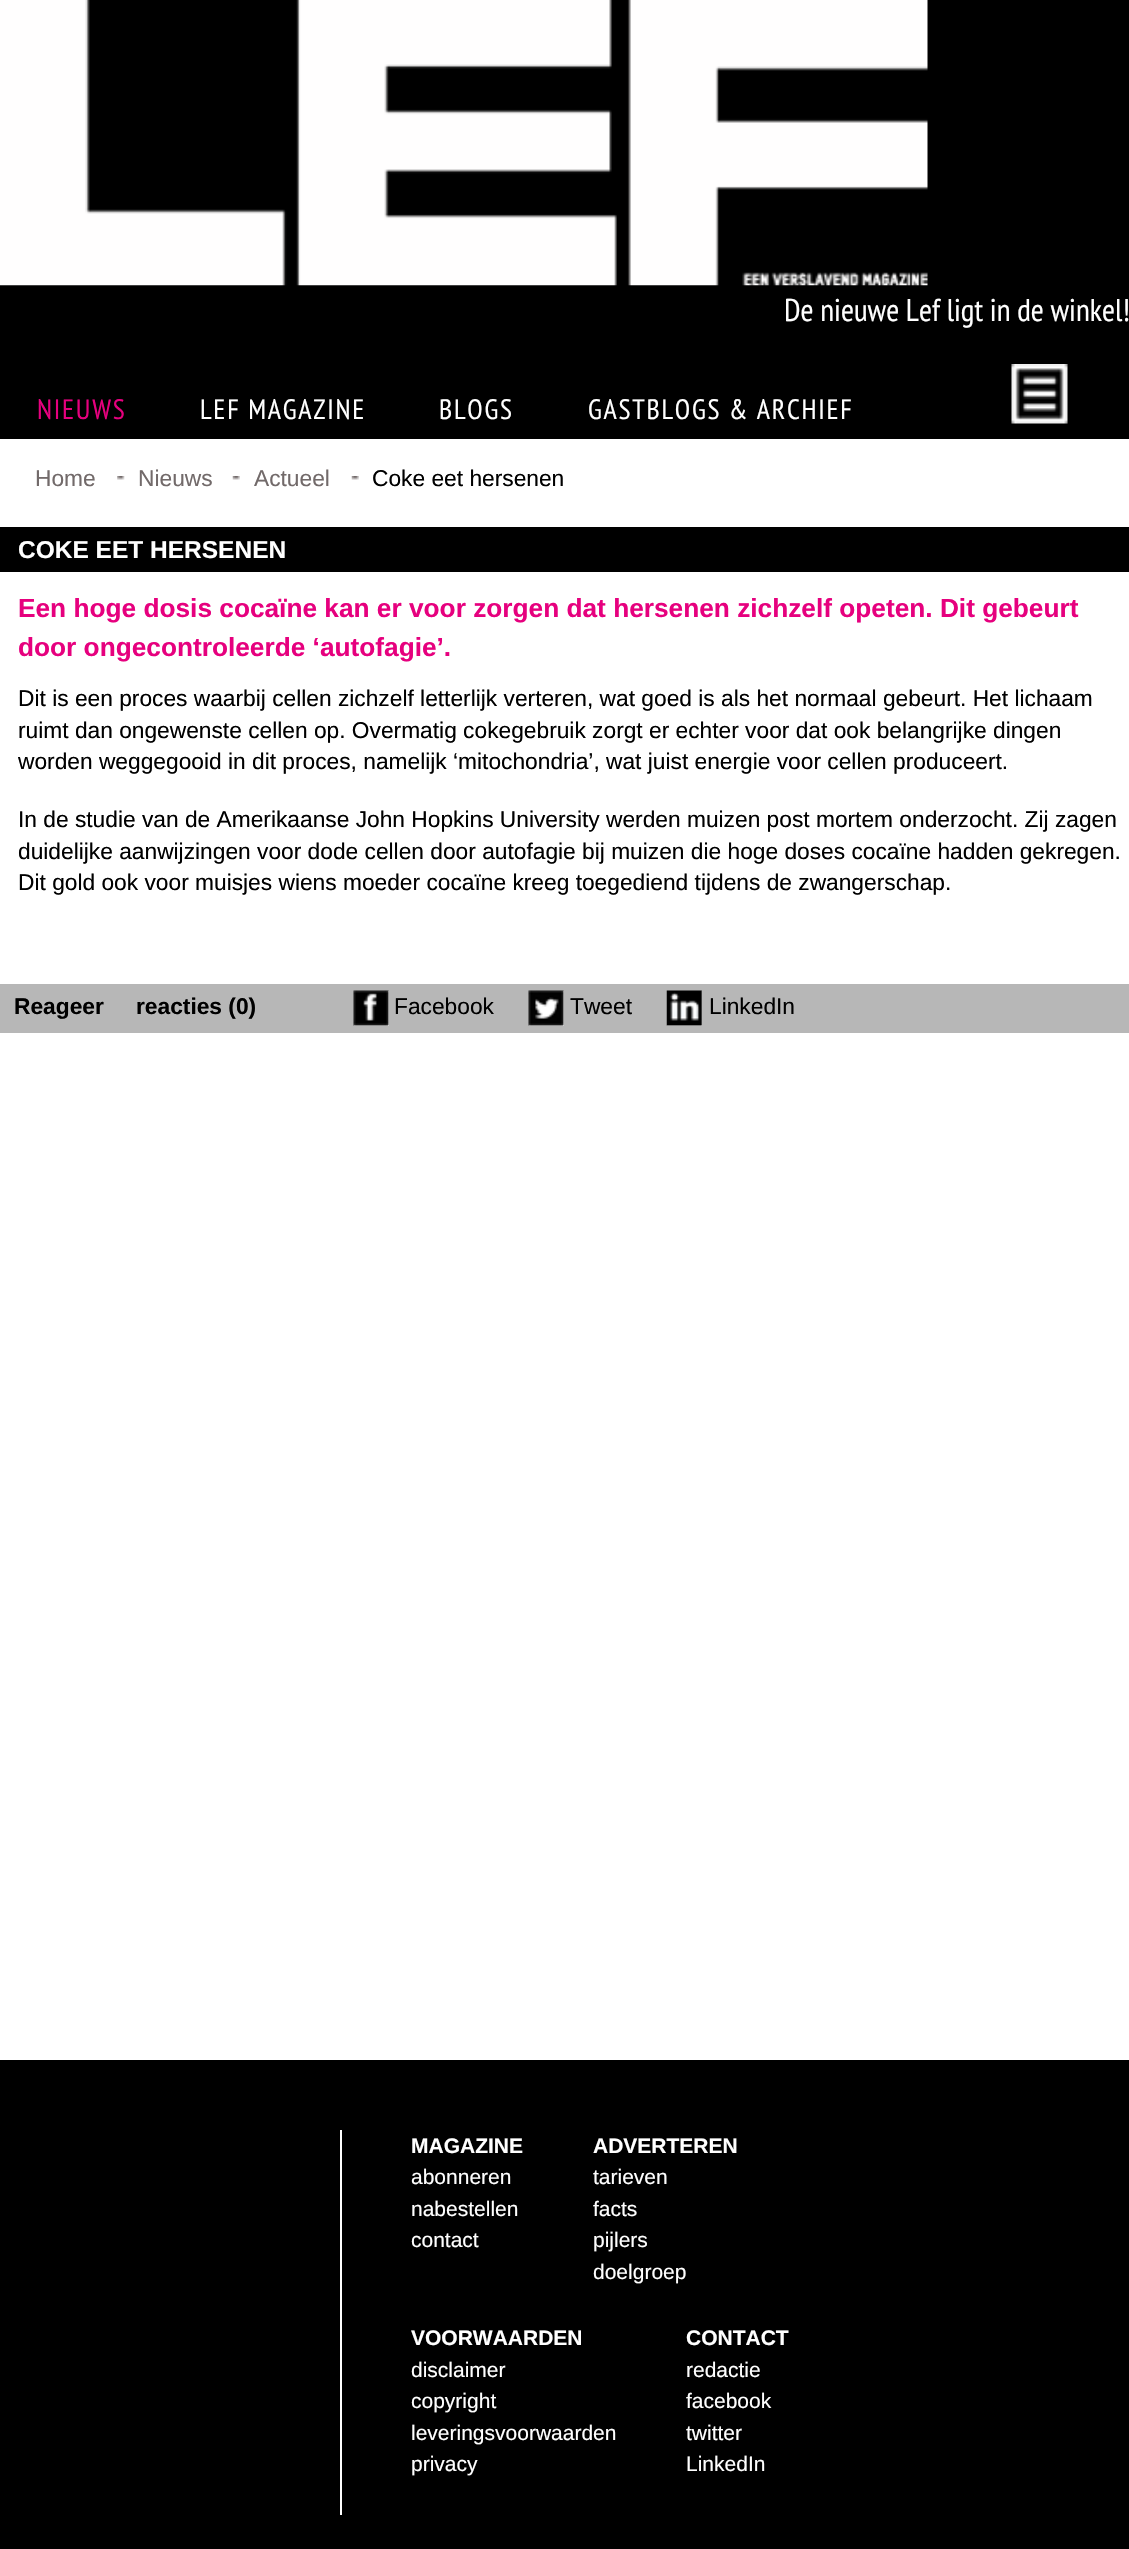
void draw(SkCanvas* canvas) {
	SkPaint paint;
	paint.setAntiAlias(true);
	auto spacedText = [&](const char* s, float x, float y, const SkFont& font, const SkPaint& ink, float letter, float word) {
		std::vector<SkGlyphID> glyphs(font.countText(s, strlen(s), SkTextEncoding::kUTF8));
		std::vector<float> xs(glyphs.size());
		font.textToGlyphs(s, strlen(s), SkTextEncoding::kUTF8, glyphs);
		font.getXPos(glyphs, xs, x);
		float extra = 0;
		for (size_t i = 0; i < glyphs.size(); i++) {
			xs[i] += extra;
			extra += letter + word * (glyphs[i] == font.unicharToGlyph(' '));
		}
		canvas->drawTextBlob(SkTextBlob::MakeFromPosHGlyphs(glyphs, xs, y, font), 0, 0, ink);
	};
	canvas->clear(0xffffffff);
	paint.setColor(0xff000000);
	canvas->drawRect(SkRect::MakeXYWH(0, 0, 1129, 439), paint);
	canvas->drawImageRect(SkImages::DeferredFromEncodedData(SkData::MakeFromFileName("img1.png")), SkRect::MakeXYWH(0, 0, 928, 286), SkSamplingOptions());
	SkFont f1(fontMgr->matchFamilyStyle("PT Sans Narrow", SkFontStyle::Normal()), 31.5);
	f1.setSubpixel(true);
	paint.setColor(0xffffffff);
	canvas->drawString("De nieuwe Lef ligt in de winkel!", 784, 321, f1, paint);
	SkFont f2(fontMgr->matchFamilyStyle("PT Sans Narrow", SkFontStyle::Normal()), 28);
	f2.setSubpixel(true);
	paint.setColor(0xffe6007e);
	spacedText("NIEUWS", 37, 419, f2, paint, 1.75, 0);
	paint.setColor(0xffffffff);
	spacedText("LEF MAGAZINE", 200, 419, f2, paint, 1.75, 0);
	spacedText("BLOGS", 439, 419, f2, paint, 1.75, 0);
	spacedText("GASTBLOGS & ARCHIEF", 588, 419, f2, paint, 1.75, 0);
	canvas->drawImageRect(SkImages::DeferredFromEncodedData(SkData::MakeFromFileName("img2.png")), SkRect::MakeXYWH(1011, 364, 57, 60), SkSamplingOptions());
	SkFont f3(fontMgr->matchFamilyStyle("Liberation Sans", SkFontStyle::Normal()), 22.75);
	f3.setSubpixel(true);
	paint.setColor(0xff726a6a);
	canvas->drawString("Home", 35, 486, f3, paint);
	canvas->drawImageRect(SkImages::DeferredFromEncodedData(SkData::MakeFromFileName("img3.png")), SkRect::MakeXYWH(117, 476, 8, 4), SkSamplingOptions());
	canvas->drawString("Nieuws", 138, 486, f3, paint);
	canvas->drawImageRect(SkImages::DeferredFromEncodedData(SkData::MakeFromFileName("img4.png")), SkRect::MakeXYWH(232, 476, 8, 4), SkSamplingOptions());
	canvas->drawString("Actueel", 254, 486, f3, paint);
	canvas->drawImageRect(SkImages::DeferredFromEncodedData(SkData::MakeFromFileName("img5.png")), SkRect::MakeXYWH(351, 476, 8, 4), SkSamplingOptions());
	paint.setColor(0xff000000);
	canvas->drawString("Coke eet hersenen", 372, 486, f3, paint);
	canvas->drawRect(SkRect::MakeXYWH(0, 527, 1129, 45), paint);
	SkFont f4(fontMgr->matchFamilyStyle("Liberation Sans", SkFontStyle::Bold()), 24.5);
	f4.setSubpixel(true);
	paint.setColor(0xffffffff);
	canvas->drawString("COKE EET HERSENEN", 18, 558, f4, paint);
	SkFont f5(fontMgr->matchFamilyStyle("Liberation Sans", SkFontStyle::Bold()), 26.25);
	f5.setSubpixel(true);
	paint.setColor(0xffe6007e);
	canvas->drawString("Een hoge dosis cocaïne kan er voor zorgen dat hersenen zichzelf opeten. Dit gebeurt", 18, 617, f5, paint);
	canvas->drawString("door ongecontroleerde ‘autofagie’.", 18, 656, f5, paint);
	paint.setColor(0xff000000);
	canvas->drawString("Dit is een proces waarbij cellen zichzelf letterlijk verteren, wat goed is als het normaal gebeurt. Het lichaam", 18, 706, f3, paint);
	canvas->drawString("ruimt dan ongewenste cellen op. Overmatig cokegebruik zorgt er echter voor dat ook belangrijke dingen", 18, 738, f3, paint);
	canvas->drawString("worden weggegooid in dit proces, namelijk ‘mitochondria’, wat juist energie voor cellen produceert.", 18, 769, f3, paint);
	canvas->drawString("In de studie van de Amerikaanse John Hopkins University werden muizen post mortem onderzocht. Zij zagen", 18, 827, f3, paint);
	canvas->drawString("duidelijke aanwijzingen voor dode cellen door autofagie bij muizen die hoge doses cocaïne hadden gekregen.", 18, 859, f3, paint);
	canvas->drawString("Dit gold ook voor muisjes wiens moeder cocaïne kreeg toegediend tijdens de zwangerschap.", 18, 890, f3, paint);
	paint.setColor(0xffb7b7b7);
	canvas->drawRect(SkRect::MakeXYWH(0, 984, 1129, 49), paint);
	SkFont f6(fontMgr->matchFamilyStyle("Liberation Sans", SkFontStyle::Bold()), 22.75);
	f6.setSubpixel(true);
	paint.setColor(0xff000000);
	canvas->drawString("Reageer", 14, 1014, f6, paint);
	canvas->drawString("reacties (0)", 136, 1014, f6, paint);
	paint.setColor(0xffffffff);
	canvas->drawRect(SkRect::MakeXYWH(354, 991, 35, 35), paint);
	canvas->drawImageRect(SkImages::DeferredFromEncodedData(SkData::MakeFromFileName("img6.png")), SkRect::MakeXYWH(353, 990, 36, 36), SkSamplingOptions());
	paint.setColor(0xff000000);
	canvas->drawString("Facebook", 394, 1014, f3, paint);
	paint.setColor(0xffffffff);
	canvas->drawRect(SkRect::MakeXYWH(529, 991, 35, 35), paint);
	canvas->drawImageRect(SkImages::DeferredFromEncodedData(SkData::MakeFromFileName("img7.png")), SkRect::MakeXYWH(528, 990, 36, 36), SkSamplingOptions());
	paint.setColor(0xff000000);
	canvas->drawString("Tweet", 570, 1014, f3, paint);
	paint.setColor(0xffffffff);
	canvas->drawRect(SkRect::MakeXYWH(667, 991, 35, 35), paint);
	canvas->drawImageRect(SkImages::DeferredFromEncodedData(SkData::MakeFromFileName("img8.png")), SkRect::MakeXYWH(666, 990, 36, 36), SkSamplingOptions());
	paint.setColor(0xff000000);
	canvas->drawString("LinkedIn", 709, 1014, f3, paint);
	canvas->drawRect(SkRect::MakeXYWH(0, 2060, 1129, 489), paint);
	paint.setColor(0xffffffff);
	canvas->drawRect(SkRect::MakeXYWH(340, 2130, 2, 385), paint);
	SkFont f7(fontMgr->matchFamilyStyle("Liberation Sans", SkFontStyle::Bold()), 21);
	f7.setSubpixel(true);
	canvas->drawString("MAGAZINE", 411, 2153, f7, paint);
	SkFont f8(fontMgr->matchFamilyStyle("Liberation Sans", SkFontStyle::Normal()), 21);
	f8.setSubpixel(true);
	canvas->drawString("abonneren", 411, 2184, f8, paint);
	canvas->drawString("nabestellen", 411, 2216, f8, paint);
	canvas->drawString("contact", 411, 2247, f8, paint);
	canvas->drawString("ADVERTEREN", 593, 2153, f7, paint);
	canvas->drawString("tarieven", 593, 2184, f8, paint);
	canvas->drawString("facts", 593, 2216, f8, paint);
	canvas->drawString("pijlers", 593, 2247, f8, paint);
	canvas->drawString("doelgroep", 593, 2279, f8, paint);
	canvas->drawString("VOORWAARDEN", 411, 2345, f7, paint);
	canvas->drawString("disclaimer", 411, 2377, f8, paint);
	canvas->drawString("copyright", 411, 2408, f8, paint);
	canvas->drawString("leveringsvoorwaarden", 411, 2440, f8, paint);
	canvas->drawString("privacy", 411, 2471, f8, paint);
	canvas->drawString("CONTACT", 686, 2345, f7, paint);
	canvas->drawString("redactie", 686, 2377, f8, paint);
	canvas->drawString("facebook", 686, 2408, f8, paint);
	canvas->drawString("twitter", 686, 2440, f8, paint);
	canvas->drawString("LinkedIn", 686, 2471, f8, paint);
}
